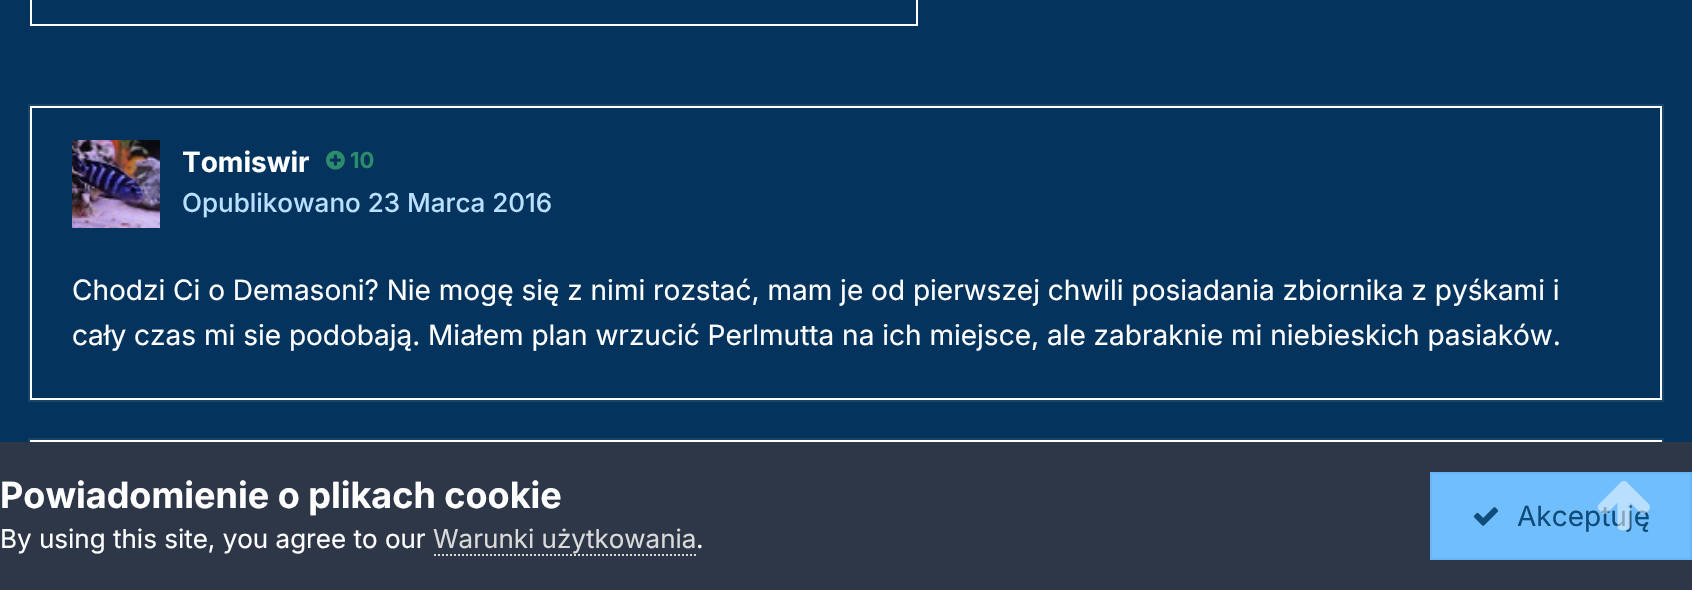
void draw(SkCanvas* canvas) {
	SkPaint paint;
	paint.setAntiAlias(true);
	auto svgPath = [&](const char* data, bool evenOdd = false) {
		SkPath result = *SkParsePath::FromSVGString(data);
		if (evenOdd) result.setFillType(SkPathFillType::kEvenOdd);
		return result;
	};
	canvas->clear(0xff04345d);
	paint.setStroke(true);
	paint.setStrokeWidth(2);
	paint.setColor(0xffffffff);
	canvas->drawRect(SkRect::MakeXYWH(31, -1, 886, 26), paint);
	paint.setColor(0x33718096);
	canvas->drawRect(SkRect::MakeXYWH(29, 105, 1634, 296), paint);
	paint.setColor(0xffffffff);
	canvas->drawRect(SkRect::MakeXYWH(31, 107, 1630, 292), paint);
	canvas->drawImageRect(SkImages::DeferredFromEncodedData(SkData::MakeFromFileName("img1.png")), SkRect::MakeXYWH(72, 140, 88, 88), SkSamplingOptions());
	SkFont f1(fontMgr->matchFamilyStyle("Inter", SkFontStyle::Bold()), 28);
	f1.setSubpixel(true);
	paint.setStroke(false);
	canvas->drawString("Tomiswir", 182, 172, f1, paint);
	canvas->drawImageRect(SkImages::DeferredFromEncodedData(SkData::MakeFromFileName("img2.png")), SkRect::MakeXYWH(326, 150, 19, 20), SkSamplingOptions());
	SkFont f2(fontMgr->matchFamilyStyle("Inter", SkFontStyle::Bold()), 22);
	f2.setSubpixel(true);
	paint.setColor(0xff2c8c69);
	canvas->drawString("10", 350, 168, f2, paint);
	SkFont f3(fontMgr->matchFamilyStyle("Inter", SkFontStyle(500, SkFontStyle::kNormal_Width, SkFontStyle::kUpright_Slant)), 26);
	f3.setSubpixel(true);
	paint.setColor(0xffbadfff);
	canvas->drawString("Opublikowano 23 Marca 2016", 182, 212, f3, paint);
	SkFont f4(fontMgr->matchFamilyStyle("Inter", SkFontStyle::Normal()), 28);
	f4.setSubpixel(true);
	paint.setColor(0xffffffff);
	canvas->drawString("Chodzi Ci o Demasoni? Nie mogę się z nimi rozstać, mam je od pierwszej chwili posiadania zbiornika z pyśkami i", 72, 300, f4, paint);
	canvas->drawString("cały czas mi sie podobają. Miałem plan wrzucić Perlmutta na ich miejsce, ale zabraknie mi niebieskich pasiaków.", 72, 345, f4, paint);
	paint.setStroke(true);
	paint.setColor(0xff1a4368);
	canvas->drawRect(SkRect::MakeXYWH(29, 439, 1634, 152), paint);
	paint.setColor(0xffffffff);
	canvas->drawRect(SkRect::MakeXYWH(31, 441, 1630, 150), paint);
	paint.setStroke(false);
	paint.setColor(0xff2d3748);
	canvas->drawRect(SkRect::MakeXYWH(0, 442, 1692, 148), paint);
	paint.setColor(0xff71beff);
	canvas->drawRect(SkRect::MakeXYWH(1431, 473, 260, 86), paint);
	paint.setStroke(true);
	paint.setColor(0xff6ab5f5);
	canvas->drawRect(SkRect::MakeXYWH(1431, 473, 260, 86), paint);
	paint.setStroke(false);
	paint.setColor(0xff0e4c79);
	canvas->drawString("Akceptuję", 1517, 526, f4, paint);
	canvas->drawImageRect(SkImages::DeferredFromEncodedData(SkData::MakeFromFileName("img3.png")), SkRect::MakeXYWH(1597, 481, 53, 50), SkSamplingOptions());
	SkFont f5(fontMgr->matchFamilyStyle("Inter", SkFontStyle::Bold()), 36);
	f5.setSubpixel(true);
	paint.setColor(0xffffffff);
	canvas->drawString("Powiadomienie o plikach cookie", 0, 508, f5, paint);
	SkFont f6(fontMgr->matchFamilyStyle("Inter", SkFontStyle::Normal()), 26);
	f6.setSubpixel(true);
	canvas->drawString("By using this site, you agree to our", 0, 548, f6, paint);
	paint.setColor(0xffdadada);
	canvas->drawString("Warunki użytkowania", 433, 548, f6, paint);
	paint.setStroke(true);
	paint.setPathEffect(SkDashPathEffect::Make({{2, 2}}, 0));
	canvas->drawPath(svgPath("M434 555H696"), paint);
	paint.setPathEffect(nullptr);
	paint.setStroke(false);
	paint.setColor(0xffffffff);
	canvas->drawString(".", 696, 548, f6, paint);
	canvas->drawImageRect(SkImages::DeferredFromEncodedData(SkData::MakeFromFileName("img4.png")), SkRect::MakeXYWH(1473, 507, 26, 19), SkSamplingOptions());
}
